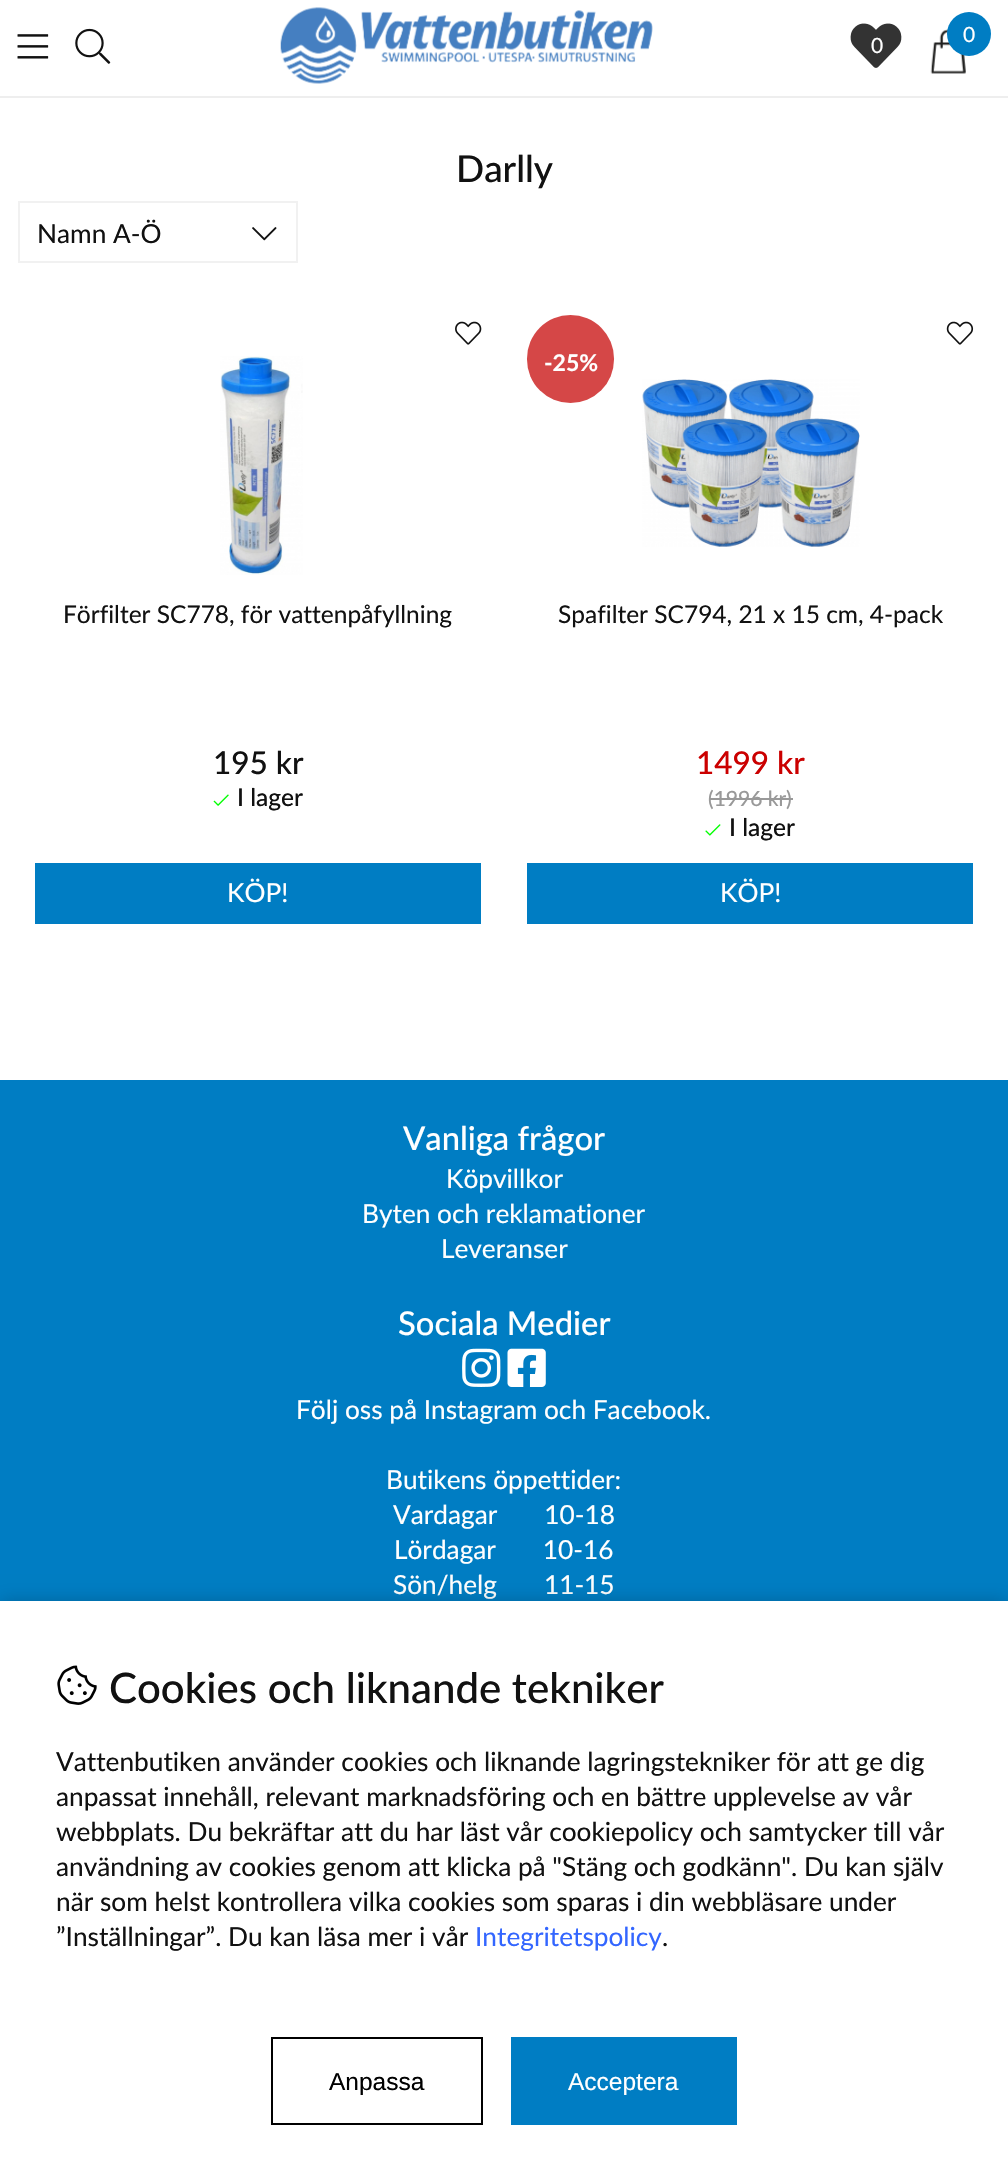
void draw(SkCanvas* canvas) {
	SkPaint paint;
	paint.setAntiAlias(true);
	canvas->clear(0xffffffff);
	paint.setColor(0xffeeeeee);
	canvas->drawRect(SkRect::MakeXYWH(0, 96, 1008, 2), paint);
	canvas->drawImageRect(SkImages::DeferredFromEncodedData(SkData::MakeFromFileName("img1.png")), SkRect::MakeXYWH(17, 34, 32, 25), SkSamplingOptions());
	canvas->drawImageRect(SkImages::DeferredFromEncodedData(SkData::MakeFromFileName("img2.png")), SkRect::MakeXYWH(75, 28, 36, 36), SkSamplingOptions());
	canvas->drawImageRect(SkImages::DeferredFromEncodedData(SkData::MakeFromFileName("img3.png")), SkRect::MakeXYWH(280, 7, 373, 77), SkSamplingOptions());
	canvas->drawImageRect(SkImages::DeferredFromEncodedData(SkData::MakeFromFileName("img4.png")), SkRect::MakeXYWH(850, 23, 52, 45), SkSamplingOptions());
	SkFont f1(fontMgr->matchFamilyStyle("Lato", SkFontStyle::Normal()), 21);
	f1.setSubpixel(true);
	paint.setColor(0xffffffff);
	canvas->drawString("0", 871, 53, f1, paint);
	canvas->drawImageRect(SkImages::DeferredFromEncodedData(SkData::MakeFromFileName("img5.png")), SkRect::MakeXYWH(930, 29, 36, 45), SkSamplingOptions());
	paint.setColor(0xff007dc3);
	canvas->drawCircle(969, 34, 22, paint);
	paint.setColor(0xffffffff);
	canvas->drawString("0", 963, 42, f1, paint);
	SkFont f2(fontMgr->matchFamilyStyle("Lato", SkFontStyle(500, SkFontStyle::kNormal_Width, SkFontStyle::kUpright_Slant)), 37);
	f2.setSubpixel(true);
	paint.setColor(0xff111111);
	canvas->drawString("Darlly", 456, 182, f2, paint);
	paint.setStroke(true);
	paint.setStrokeWidth(2);
	paint.setColor(0xfff1f1f1);
	canvas->drawRect(SkRect::MakeXYWH(19, 202, 278, 60), paint);
	SkFont f3(fontMgr->matchFamilyStyle("Lato", SkFontStyle::Normal()), 26.25);
	f3.setSubpixel(true);
	paint.setStroke(false);
	paint.setColor(0xff111111);
	canvas->drawString("Namn A-Ö", 37, 243, f3, paint);
	canvas->drawImageRect(SkImages::DeferredFromEncodedData(SkData::MakeFromFileName("img6.png")), SkRect::MakeXYWH(252, 227, 25, 14), SkSamplingOptions());
	canvas->drawImageRect(SkImages::DeferredFromEncodedData(SkData::MakeFromFileName("img7.png")), SkRect::MakeXYWH(455, 321, 27, 24), SkSamplingOptions());
	canvas->drawImageRect(SkImages::DeferredFromEncodedData(SkData::MakeFromFileName("img8.png")), SkRect::MakeXYWH(220, 356, 83, 219), SkSamplingOptions());
	SkFont f4(fontMgr->matchFamilyStyle("Lato", SkFontStyle::Normal()), 24.5);
	f4.setSubpixel(true);
	canvas->drawString("Förfilter SC778, för vattenpåfyllning", 63, 623, f4, paint);
	SkFont f5(fontMgr->matchFamilyStyle("Lato", SkFontStyle(500, SkFontStyle::kNormal_Width, SkFontStyle::kUpright_Slant)), 31.5);
	f5.setSubpixel(true);
	canvas->drawString("195 kr", 213, 774, f5, paint);
	canvas->drawImageRect(SkImages::DeferredFromEncodedData(SkData::MakeFromFileName("img9.png")), SkRect::MakeXYWH(213, 794, 16, 12), SkSamplingOptions());
	SkFont f6(fontMgr->matchFamilyStyle("Lato", SkFontStyle(500, SkFontStyle::kNormal_Width, SkFontStyle::kUpright_Slant)), 24.5);
	f6.setSubpixel(true);
	canvas->drawString("I lager", 237, 806, f6, paint);
	paint.setColor(0xff007dc3);
	canvas->drawRect(SkRect::MakeXYWH(35, 863, 446, 61), paint);
	paint.setColor(0xffffffff);
	canvas->drawString("KÖP!", 227, 902, f3, paint);
	canvas->drawImageRect(SkImages::DeferredFromEncodedData(SkData::MakeFromFileName("img10.png")), SkRect::MakeXYWH(946, 321, 28, 24), SkSamplingOptions());
	paint.setColor(0xffd54747);
	canvas->drawRoundRect(SkRect::MakeXYWH(527, 315, 87, 88), 43.5, 43.5, paint);
	SkFont f7(fontMgr->matchFamilyStyle("Lato", SkFontStyle::Bold()), 23);
	f7.setSubpixel(true);
	paint.setColor(0xffffffff);
	canvas->drawString("-25%", 544, 371, f7, paint);
	canvas->drawImageRect(SkImages::DeferredFromEncodedData(SkData::MakeFromFileName("img11.png")), SkRect::MakeXYWH(642, 379, 218, 168), SkSamplingOptions());
	paint.setColor(0xff111111);
	canvas->drawString("Spafilter SC794, 21 x 15 cm, 4-pack", 558, 623, f4, paint);
	paint.setColor(0xffcb0000);
	canvas->drawString("1499 kr", 696, 774, f5, paint);
	SkFont f8(fontMgr->matchFamilyStyle("Lato", SkFontStyle(500, SkFontStyle::kNormal_Width, SkFontStyle::kUpright_Slant)), 21);
	f8.setSubpixel(true);
	paint.setColor(0xff999999);
	canvas->drawString("(1996 kr)", 708, 806, f8, paint);
	canvas->drawRect(SkRect::MakeXYWH(709, 798, 84, 2), paint);
	canvas->drawImageRect(SkImages::DeferredFromEncodedData(SkData::MakeFromFileName("img12.png")), SkRect::MakeXYWH(705, 824, 16, 12), SkSamplingOptions());
	paint.setColor(0xff111111);
	canvas->drawString("I lager", 729, 836, f6, paint);
	paint.setColor(0xff007dc3);
	canvas->drawRect(SkRect::MakeXYWH(527, 863, 446, 61), paint);
	paint.setColor(0xffffffff);
	canvas->drawString("KÖP!", 720, 902, f3, paint);
	paint.setColor(0xff007dc3);
	canvas->drawRect(SkRect::MakeXYWH(0, 1080, 1008, 521), paint);
	SkFont f9(fontMgr->matchFamilyStyle("Lato", SkFontStyle(500, SkFontStyle::kNormal_Width, SkFontStyle::kUpright_Slant)), 32.75);
	f9.setSubpixel(true);
	paint.setColor(0xffffffff);
	canvas->drawString("Vanliga frågor", 403, 1150, f9, paint);
	canvas->drawString("Köpvillkor", 446, 1188, f3, paint);
	canvas->drawString("Byten och reklamationer", 362, 1223, f3, paint);
	canvas->drawString("Leveranser", 441, 1258, f3, paint);
	canvas->drawString("Sociala Medier", 398, 1335, f9, paint);
	canvas->drawImageRect(SkImages::DeferredFromEncodedData(SkData::MakeFromFileName("img13.png")), SkRect::MakeXYWH(462, 1348, 39, 39), SkSamplingOptions());
	canvas->drawImageRect(SkImages::DeferredFromEncodedData(SkData::MakeFromFileName("img14.png")), SkRect::MakeXYWH(507, 1348, 39, 39), SkSamplingOptions());
	canvas->drawString("Följ oss på Instagram och Facebook.", 296, 1419, f3, paint);
	canvas->drawString("Butikens öppettider:", 386, 1489, f3, paint);
	canvas->drawString("Vardagar       10-18", 393, 1524, f3, paint);
	canvas->drawString("Lördagar       10-16", 394, 1559, f3, paint);
	canvas->drawString("Sön/helg       11-15", 393, 1594, f3, paint);
	paint.setColor(0x33000000);
	paint.setMaskFilter(SkMaskFilter::MakeBlur(kNormal_SkBlurStyle, 9));
	canvas->drawRect(SkRect::MakeXYWH(0, 1601, 1008, 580), paint);
	paint.setMaskFilter(nullptr);
	paint.setColor(0xffffffff);
	canvas->drawRect(SkRect::MakeXYWH(0, 1601, 1008, 578), paint);
	canvas->drawImageRect(SkImages::DeferredFromEncodedData(SkData::MakeFromFileName("img15.png")), SkRect::MakeXYWH(57, 1665, 40, 40), SkSamplingOptions());
	SkFont f10(fontMgr->matchFamilyStyle("Lato", SkFontStyle(500, SkFontStyle::kNormal_Width, SkFontStyle::kUpright_Slant)), 42);
	f10.setSubpixel(true);
	paint.setColor(0xff111111);
	canvas->drawString("Cookies och liknande tekniker", 109, 1703, f10, paint);
	canvas->drawString("Vattenbutiken använder cookies och liknande lagringstekniker för att ge dig", 56, 1771, f3, paint);
	canvas->drawString("anpassat innehåll, relevant marknadsföring och en bättre upplevelse av vår", 56, 1806, f3, paint);
	canvas->drawString("webbplats. Du bekräftar att du har läst vår cookiepolicy och samtycker till vår", 56, 1841, f3, paint);
	canvas->drawString("användning av cookies genom att klicka på \"Stäng och godkänn\". Du kan själv", 56, 1876, f3, paint);
	canvas->drawString("när som helst kontrollera vilka cookies som sparas i din webbläsare under", 56, 1911, f3, paint);
	canvas->drawString("”Inställningar”. Du kan läsa mer i vår", 56, 1946, f3, paint);
	paint.setColor(0xff3366ff);
	canvas->drawString("Integritetspolicy", 475, 1946, f3, paint);
	paint.setColor(0xff111111);
	canvas->drawString(".", 662, 1946, f3, paint);
	paint.setStroke(true);
	paint.setColor(0xff000000);
	canvas->drawRect(SkRect::MakeXYWH(272, 2038, 210, 86), paint);
	SkFont f11(fontMgr->matchFamilyStyle("Liberation Sans", SkFontStyle::Normal()), 24.5);
	f11.setSubpixel(true);
	paint.setStroke(false);
	canvas->drawString("Anpassa", 329, 2090, f11, paint);
	paint.setColor(0xff007dc3);
	canvas->drawRect(SkRect::MakeXYWH(511, 2037, 226, 88), paint);
	paint.setColor(0xffffffff);
	canvas->drawString("Acceptera", 568, 2090, f11, paint);
}
